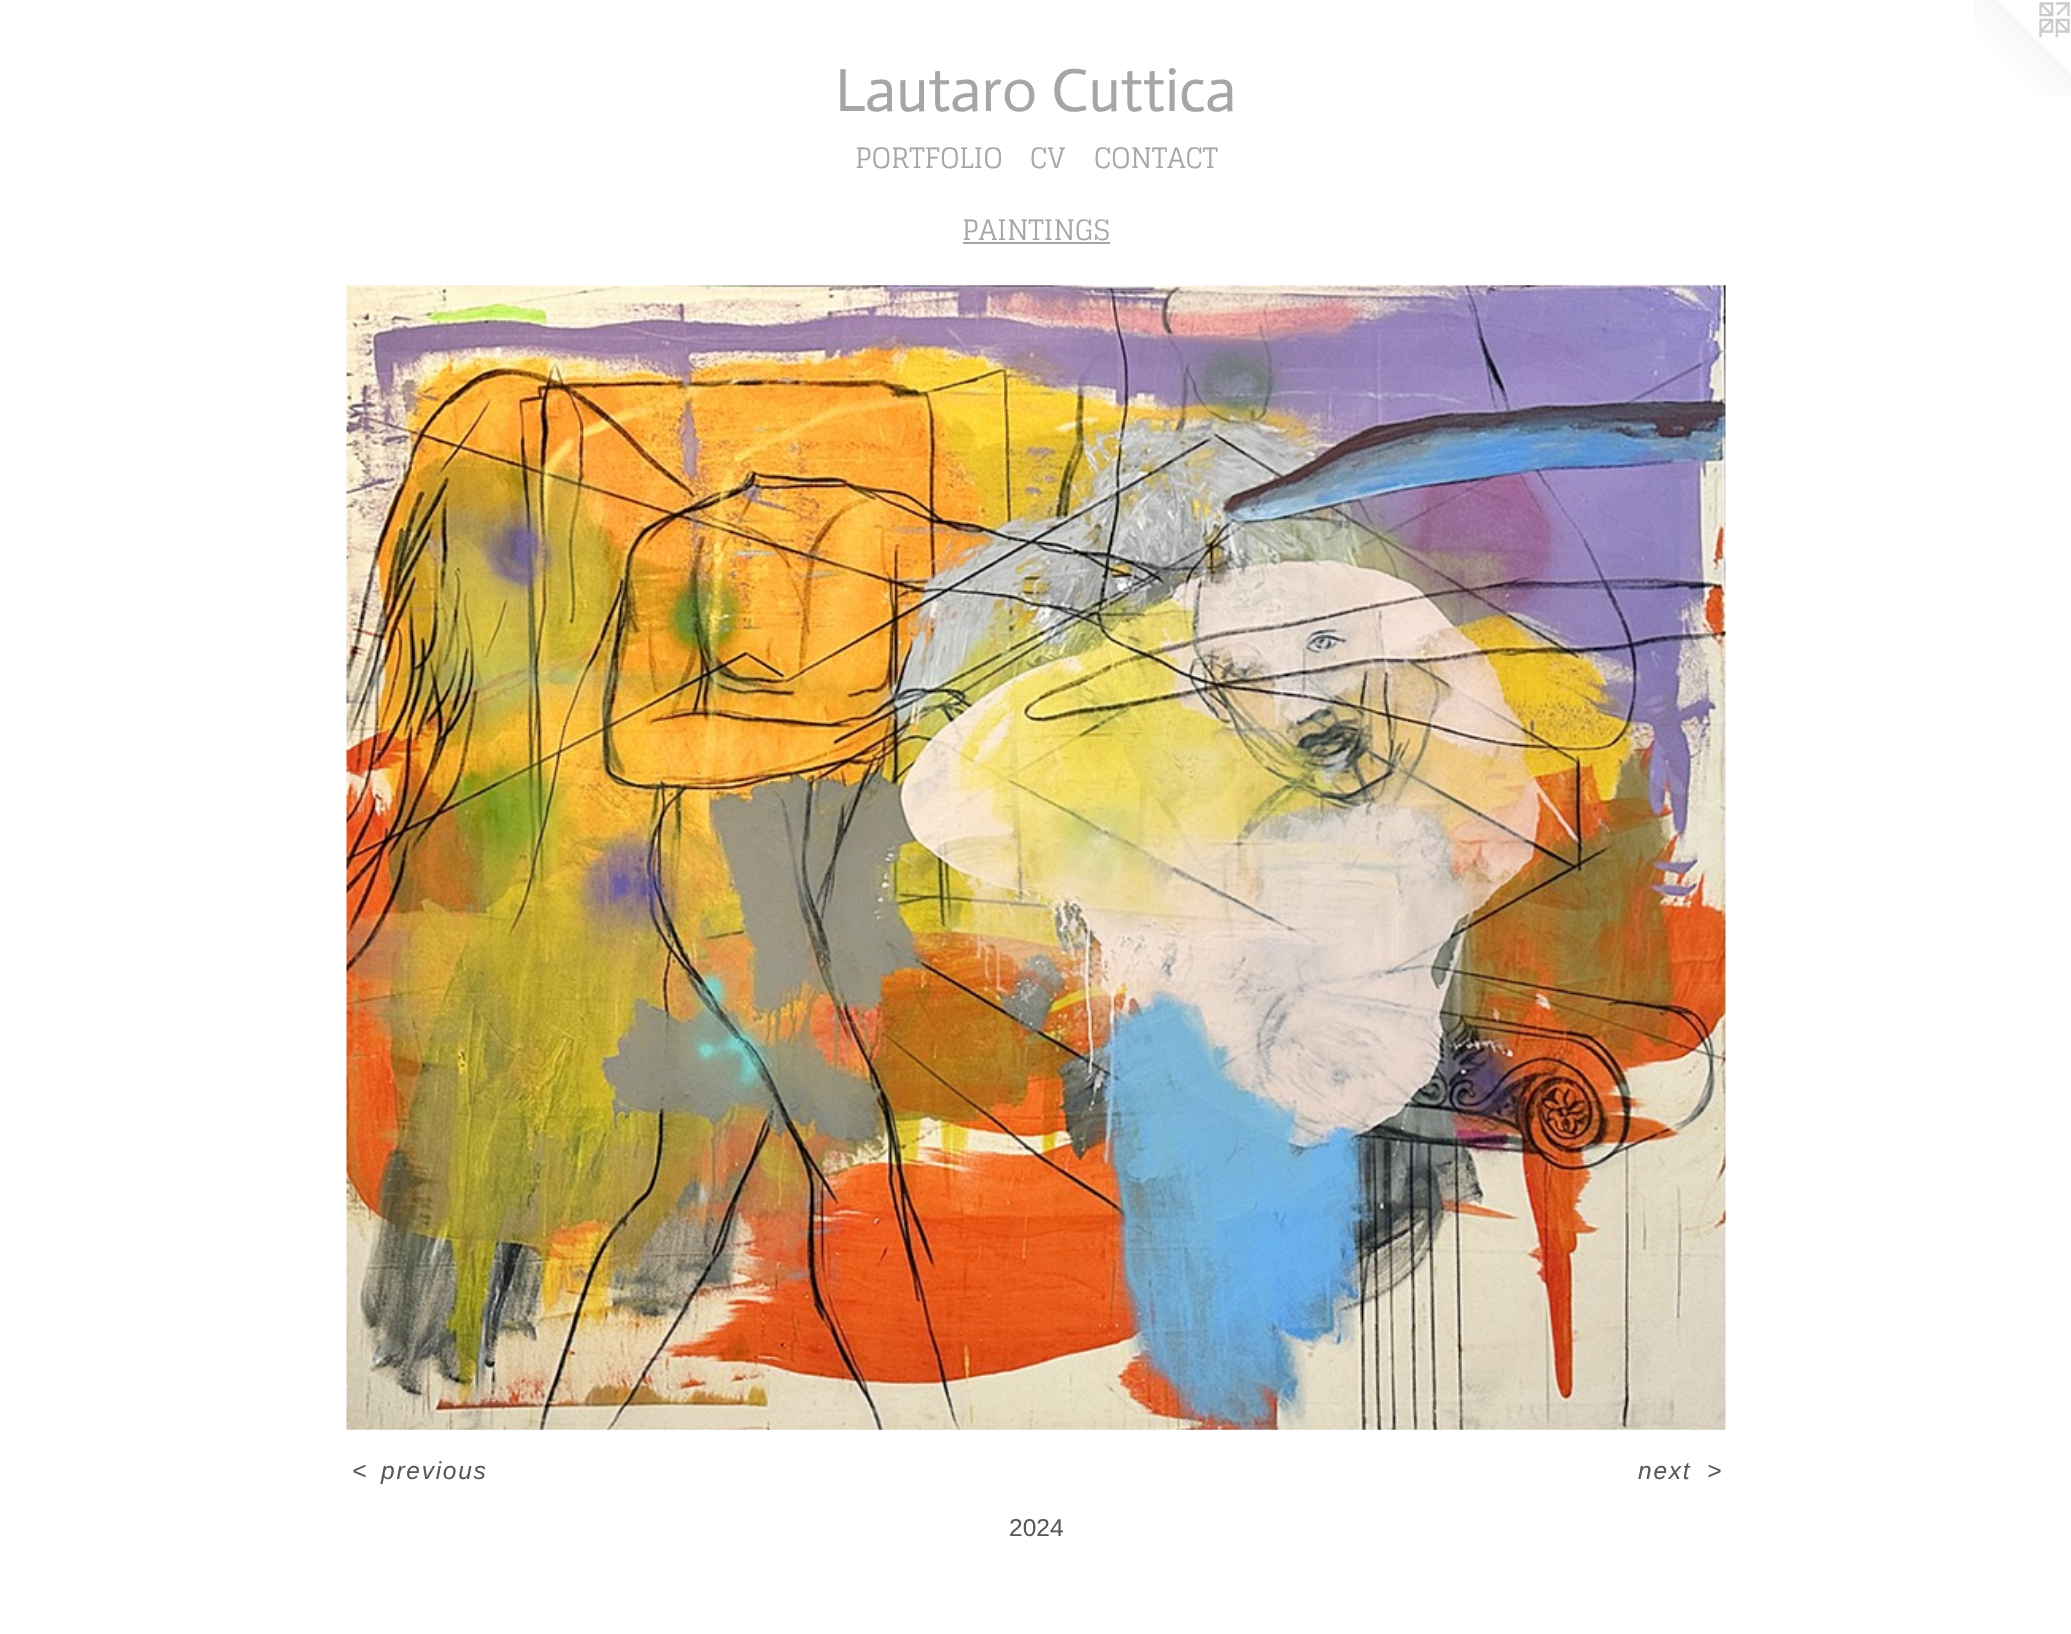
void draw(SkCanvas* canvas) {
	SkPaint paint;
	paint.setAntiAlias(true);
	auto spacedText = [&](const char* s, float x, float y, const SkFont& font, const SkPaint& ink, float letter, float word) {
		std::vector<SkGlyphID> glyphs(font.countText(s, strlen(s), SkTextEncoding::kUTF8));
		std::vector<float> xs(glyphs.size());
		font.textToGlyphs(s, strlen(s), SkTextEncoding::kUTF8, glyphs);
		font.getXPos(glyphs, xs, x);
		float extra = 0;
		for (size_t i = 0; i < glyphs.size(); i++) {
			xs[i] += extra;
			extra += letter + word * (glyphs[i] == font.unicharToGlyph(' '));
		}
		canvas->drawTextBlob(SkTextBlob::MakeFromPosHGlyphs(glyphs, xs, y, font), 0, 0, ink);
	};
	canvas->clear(0xffffffff);
	SkFont f1(fontMgr->matchFamilyStyle("Actor", SkFontStyle::Normal()), 61.25);
	f1.setSubpixel(true);
	paint.setColor(0xffa6a6a6);
	canvas->drawString("Lautaro Cuttica", 835, 111, f1, paint);
	canvas->drawImageRect(SkImages::DeferredFromEncodedData(SkData::MakeFromFileName("img1.png")), SkRect::MakeXYWH(1974, 0, 97, 97), SkSamplingOptions());
	SkFont f2(fontMgr->matchFamilyStyle("Glegoo", SkFontStyle::Normal()), 28);
	f2.setSubpixel(true);
	canvas->drawString("PORTFOLIO", 855, 168, f2, paint);
	canvas->drawString("CV", 1030, 168, f2, paint);
	canvas->drawString("CONTACT", 1094, 168, f2, paint);
	canvas->drawString("PAINTINGS", 962, 240, f2, paint);
	paint.setColor(0xffa3a3a3);
	canvas->drawRect(SkRect::MakeXYWH(963, 242, 147, 2), paint);
	canvas->drawImageRect(SkImages::DeferredFromEncodedData(SkData::MakeFromFileName("img2.png")), SkRect::MakeXYWH(346, 285, 1380, 1145), SkSamplingOptions());
	SkFont f3(fontMgr->matchFamilyStyle("Liberation Sans", SkFontStyle::Italic()), 24.5);
	f3.setSubpixel(true);
	paint.setColor(0xff595959);
	spacedText("<", 352, 1479, f3, paint, 1.75, 0);
	spacedText("previous", 381, 1479, f3, paint, 1.75, 0);
	spacedText("next", 1638, 1479, f3, paint, 1.75, 0);
	spacedText(">", 1707, 1479, f3, paint, 1.75, 0);
	SkFont f4(fontMgr->matchFamilyStyle("Liberation Sans", SkFontStyle::Normal()), 24.5);
	f4.setSubpixel(true);
	canvas->drawString("2024", 1009, 1536, f4, paint);
}
